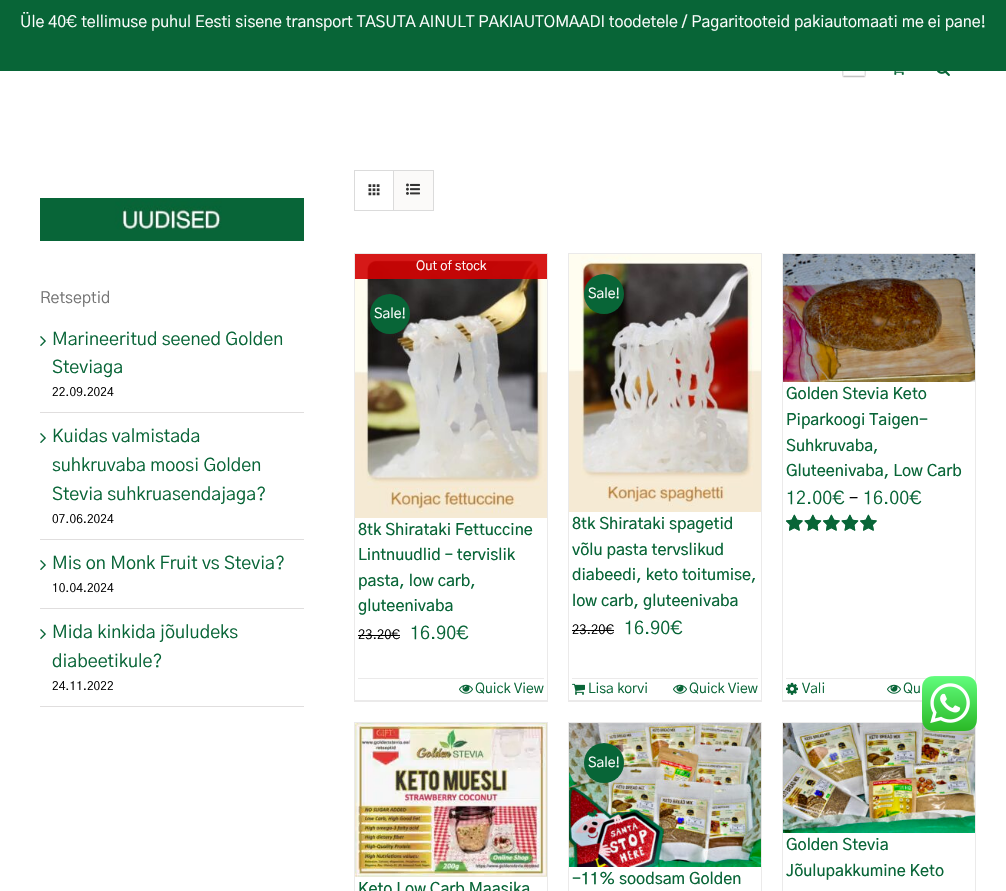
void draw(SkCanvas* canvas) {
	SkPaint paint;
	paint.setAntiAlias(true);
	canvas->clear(0xffffffff);
	paint.setColor(0xff086537);
	canvas->drawRect(SkRect::MakeXYWH(0, 0, 1006, 71), paint);
	SkFont f1(fontMgr->matchFamilyStyle("Gothic A1", SkFontStyle::Normal()), 16);
	f1.setSubpixel(true);
	paint.setColor(0xffffffff);
	canvas->drawString("Üle 40€ tellimuse puhul Eesti sisene transport TASUTA AINULT PAKIAUTOMAADI toodetele / Pagaritooteid pakiautomaati me ei pane!", 20, 27, f1, paint);
	canvas->drawImageRect(SkImages::DeferredFromEncodedData(SkData::MakeFromFileName("img1.png")), SkRect::MakeXYWH(842, 71, 24, 7), SkSamplingOptions());
	canvas->drawImageRect(SkImages::DeferredFromEncodedData(SkData::MakeFromFileName("img2.png")), SkRect::MakeXYWH(894, 71, 10, 4), SkSamplingOptions());
	canvas->drawImageRect(SkImages::DeferredFromEncodedData(SkData::MakeFromFileName("img3.png")), SkRect::MakeXYWH(937, 71, 13, 5), SkSamplingOptions());
	canvas->drawImageRect(SkImages::DeferredFromEncodedData(SkData::MakeFromFileName("img4.png")), SkRect::MakeXYWH(40, 198, 264, 43), SkSamplingOptions());
	paint.setColor(0xff747474);
	canvas->drawString("Retseptid", 40, 303, f1, paint);
	paint.setColor(0xffe0dede);
	canvas->drawRect(SkRect::MakeXYWH(40, 412, 264, 1), paint);
	canvas->drawImageRect(SkImages::DeferredFromEncodedData(SkData::MakeFromFileName("img5.png")), SkRect::MakeXYWH(40, 336, 6, 10), SkSamplingOptions());
	SkFont f2(fontMgr->matchFamilyStyle("Gothic A1", SkFontStyle::Normal()), 18);
	f2.setSubpixel(true);
	paint.setColor(0xff086537);
	canvas->drawString("Marineeritud seened Golden", 52, 345, f2, paint);
	canvas->drawString("Steviaga", 52, 373, f2, paint);
	SkFont f3(fontMgr->matchFamilyStyle("Gothic A1", SkFontStyle::Normal()), 12);
	f3.setSubpixel(true);
	paint.setColor(0xff000000);
	canvas->drawString("22.09.2024", 52, 396, f3, paint);
	paint.setColor(0xffe0dede);
	canvas->drawRect(SkRect::MakeXYWH(40, 539, 264, 1), paint);
	canvas->drawImageRect(SkImages::DeferredFromEncodedData(SkData::MakeFromFileName("img5.png")), SkRect::MakeXYWH(40, 433, 6, 10), SkSamplingOptions());
	paint.setColor(0xff086537);
	canvas->drawString("Kuidas valmistada", 52, 442, f2, paint);
	canvas->drawString("suhkruvaba moosi Golden", 52, 471, f2, paint);
	canvas->drawString("Stevia suhkruasendajaga?", 52, 500, f2, paint);
	paint.setColor(0xff000000);
	canvas->drawString("07.06.2024", 52, 523, f3, paint);
	paint.setColor(0xffe0dede);
	canvas->drawRect(SkRect::MakeXYWH(40, 608, 264, 1), paint);
	canvas->drawImageRect(SkImages::DeferredFromEncodedData(SkData::MakeFromFileName("img5.png")), SkRect::MakeXYWH(40, 560, 6, 10), SkSamplingOptions());
	paint.setColor(0xff086537);
	canvas->drawString("Mis on Monk Fruit vs Stevia?", 52, 569, f2, paint);
	paint.setColor(0xff000000);
	canvas->drawString("10.04.2024", 52, 592, f3, paint);
	paint.setColor(0xffe0dede);
	canvas->drawRect(SkRect::MakeXYWH(40, 706, 264, 1), paint);
	canvas->drawImageRect(SkImages::DeferredFromEncodedData(SkData::MakeFromFileName("img5.png")), SkRect::MakeXYWH(40, 629, 6, 10), SkSamplingOptions());
	paint.setColor(0xff086537);
	canvas->drawString("Mida kinkida jõuludeks", 52, 638, f2, paint);
	canvas->drawString("diabeetikule?", 52, 667, f2, paint);
	paint.setColor(0xff000000);
	canvas->drawString("24.11.2022", 52, 690, f3, paint);
	paint.setStroke(true);
	paint.setStrokeWidth(1);
	paint.setColor(0xffdbdbdb);
	canvas->drawRect(SkRect::MakeXYWH(354.5, 170.5, 79, 40), paint);
	paint.setStroke(false);
	canvas->drawRect(SkRect::MakeXYWH(393, 171, 1, 39), paint);
	canvas->drawImageRect(SkImages::DeferredFromEncodedData(SkData::MakeFromFileName("img6.png")), SkRect::MakeXYWH(368, 184, 12, 12), SkSamplingOptions());
	paint.setColor(0xfffbfaf9);
	canvas->drawRect(SkRect::MakeXYWH(394, 171, 39, 39), paint);
	canvas->drawImageRect(SkImages::DeferredFromEncodedData(SkData::MakeFromFileName("img7.png")), SkRect::MakeXYWH(406, 183, 14, 12), SkSamplingOptions());
	paint.setColor(0xffebeaea);
	canvas->drawRect(SkRect::MakeXYWH(354, 253, 194, 1), paint);
	canvas->drawRect(SkRect::MakeXYWH(547, 253, 1, 449), paint);
	canvas->drawRect(SkRect::MakeXYWH(354, 700, 194, 2), paint);
	canvas->drawRect(SkRect::MakeXYWH(354, 253, 1, 449), paint);
	canvas->drawImageRect(SkImages::DeferredFromEncodedData(SkData::MakeFromFileName("img8.png")), SkRect::MakeXYWH(355, 254, 192, 264), SkSamplingOptions());
	paint.setColor(0xe6d20000);
	canvas->drawRect(SkRect::MakeXYWH(355, 254, 192, 25), paint);
	SkFont f4(fontMgr->matchFamilyStyle("Gothic A1", SkFontStyle::Normal()), 13);
	f4.setSubpixel(true);
	paint.setColor(0xffffffff);
	canvas->drawString("Out of stock", 416, 270, f4, paint);
	paint.setColor(0xff086537);
	canvas->drawCircle(390, 314, 20, paint);
	SkFont f5(fontMgr->matchFamilyStyle("Gothic A1", SkFontStyle::Normal()), 14);
	f5.setSubpixel(true);
	paint.setColor(0xffffffff);
	canvas->drawString("Sale!", 374, 318, f5, paint);
	SkFont f6(fontMgr->matchFamilyStyle("Gothic A1", SkFontStyle(500, SkFontStyle::kNormal_Width, SkFontStyle::kUpright_Slant)), 16);
	f6.setSubpixel(true);
	paint.setColor(0xff086537);
	canvas->drawString("8tk Shirataki Fettuccine", 358, 535, f6, paint);
	canvas->drawString("Lintnuudlid – tervislik", 358, 560, f6, paint);
	canvas->drawString("pasta, low carb,", 358, 586, f6, paint);
	canvas->drawString("gluteenivaba", 358, 611, f6, paint);
	paint.setColor(0xff000000);
	canvas->drawString("23.20€", 358, 639, f4, paint);
	canvas->drawRect(SkRect::MakeXYWH(358, 635, 42, 1), paint);
	paint.setColor(0xff086537);
	canvas->drawString("16.90€", 410, 639, f2, paint);
	paint.setColor(0xffebeaea);
	canvas->drawRect(SkRect::MakeXYWH(358, 678, 186, 1), paint);
	canvas->drawImageRect(SkImages::DeferredFromEncodedData(SkData::MakeFromFileName("img9.png")), SkRect::MakeXYWH(459, 684, 14, 10), SkSamplingOptions());
	paint.setColor(0xff086537);
	canvas->drawString("Quick View", 475, 693, f5, paint);
	paint.setColor(0xffebeaea);
	canvas->drawRect(SkRect::MakeXYWH(568, 253, 194, 1), paint);
	canvas->drawRect(SkRect::MakeXYWH(761, 253, 1, 449), paint);
	canvas->drawRect(SkRect::MakeXYWH(568, 700, 194, 2), paint);
	canvas->drawRect(SkRect::MakeXYWH(568, 253, 1, 449), paint);
	canvas->drawImageRect(SkImages::DeferredFromEncodedData(SkData::MakeFromFileName("img10.png")), SkRect::MakeXYWH(569, 254, 192, 258), SkSamplingOptions());
	paint.setColor(0xff086537);
	canvas->drawCircle(604, 294, 20, paint);
	paint.setColor(0xffffffff);
	canvas->drawString("Sale!", 588, 298, f5, paint);
	paint.setColor(0xff086537);
	canvas->drawString("8tk Shirataki spagetid", 572, 529, f6, paint);
	canvas->drawString("võlu pasta tervslikud", 572, 555, f6, paint);
	canvas->drawString("diabeedi, keto toitumise,", 572, 580, f6, paint);
	canvas->drawString("low carb, gluteenivaba", 572, 606, f6, paint);
	paint.setColor(0xff000000);
	canvas->drawString("23.20€", 572, 634, f4, paint);
	canvas->drawRect(SkRect::MakeXYWH(572, 630, 42, 1), paint);
	paint.setColor(0xff086537);
	canvas->drawString("16.90€", 624, 634, f2, paint);
	paint.setColor(0xffebeaea);
	canvas->drawRect(SkRect::MakeXYWH(572, 678, 186, 1), paint);
	canvas->drawImageRect(SkImages::DeferredFromEncodedData(SkData::MakeFromFileName("img11.png")), SkRect::MakeXYWH(572, 683, 13, 12), SkSamplingOptions());
	paint.setColor(0xff086537);
	canvas->drawString("Lisa korvi", 588, 693, f5, paint);
	canvas->drawImageRect(SkImages::DeferredFromEncodedData(SkData::MakeFromFileName("img9.png")), SkRect::MakeXYWH(673, 684, 14, 10), SkSamplingOptions());
	canvas->drawString("Quick View", 689, 693, f5, paint);
	paint.setColor(0xffebeaea);
	canvas->drawRect(SkRect::MakeXYWH(782, 253, 194, 1), paint);
	canvas->drawRect(SkRect::MakeXYWH(975, 253, 1, 430), paint);
	canvas->drawRect(SkRect::MakeXYWH(782, 700, 140, 2), paint);
	canvas->drawRect(SkRect::MakeXYWH(782, 253, 1, 449), paint);
	canvas->drawImageRect(SkImages::DeferredFromEncodedData(SkData::MakeFromFileName("img12.png")), SkRect::MakeXYWH(783, 254, 192, 128), SkSamplingOptions());
	paint.setColor(0xff086537);
	canvas->drawString("Golden Stevia Keto", 786, 399, f6, paint);
	canvas->drawString("Piparkoogi Taigen-", 786, 425, f6, paint);
	canvas->drawString("Suhkruvaba,", 786, 451, f6, paint);
	canvas->drawString("Gluteenivaba, Low Carb", 786, 476, f6, paint);
	canvas->drawString("12.00€", 786, 504, f2, paint);
	paint.setColor(0xff000000);
	canvas->drawString("–", 849, 504, f2, paint);
	paint.setColor(0xff086537);
	canvas->drawString("16.00€", 863, 504, f2, paint);
	canvas->drawImageRect(SkImages::DeferredFromEncodedData(SkData::MakeFromFileName("img13.png")), SkRect::MakeXYWH(786, 514, 91, 17), SkSamplingOptions());
	canvas->drawImageRect(SkImages::DeferredFromEncodedData(SkData::MakeFromFileName("img14.png")), SkRect::MakeXYWH(786, 514, 91, 17), SkSamplingOptions());
	paint.setColor(0xffebeaea);
	canvas->drawRect(SkRect::MakeXYWH(786, 678, 141, 1), paint);
	canvas->drawImageRect(SkImages::DeferredFromEncodedData(SkData::MakeFromFileName("img15.png")), SkRect::MakeXYWH(786, 682, 12, 13), SkSamplingOptions());
	paint.setColor(0xff086537);
	canvas->drawString("Vali", 802, 693, f5, paint);
	canvas->drawImageRect(SkImages::DeferredFromEncodedData(SkData::MakeFromFileName("img9.png")), SkRect::MakeXYWH(887, 684, 14, 10), SkSamplingOptions());
	canvas->drawString("Qu", 903, 693, f5, paint);
	paint.setColor(0xffebeaea);
	canvas->drawRect(SkRect::MakeXYWH(568, 722, 194, 1), paint);
	canvas->drawRect(SkRect::MakeXYWH(761, 722, 1, 169), paint);
	canvas->drawRect(SkRect::MakeXYWH(568, 722, 1, 169), paint);
	canvas->drawImageRect(SkImages::DeferredFromEncodedData(SkData::MakeFromFileName("img16.png")), SkRect::MakeXYWH(569, 723, 192, 144), SkSamplingOptions());
	paint.setColor(0xff086537);
	canvas->drawCircle(604, 763, 20, paint);
	paint.setColor(0xffffffff);
	canvas->drawString("Sale!", 588, 767, f5, paint);
	paint.setColor(0xff086537);
	canvas->drawString("-11% soodsam Golden", 572, 884, f6, paint);
	paint.setColor(0xffebeaea);
	canvas->drawRect(SkRect::MakeXYWH(782, 722, 141, 1), paint);
	canvas->drawRect(SkRect::MakeXYWH(975, 722, 1, 169), paint);
	canvas->drawRect(SkRect::MakeXYWH(782, 722, 1, 169), paint);
	canvas->drawImageRect(SkImages::DeferredFromEncodedData(SkData::MakeFromFileName("img17.png")), SkRect::MakeXYWH(783, 723, 192, 110), SkSamplingOptions());
	paint.setColor(0xff086537);
	canvas->drawString("Golden Stevia", 786, 850, f6, paint);
	canvas->drawString("Jõulupakkumine Keto", 786, 876, f6, paint);
	paint.setColor(0xffebeaea);
	canvas->drawRect(SkRect::MakeXYWH(354, 722, 194, 1), paint);
	canvas->drawRect(SkRect::MakeXYWH(547, 722, 1, 169), paint);
	canvas->drawRect(SkRect::MakeXYWH(354, 722, 1, 169), paint);
	canvas->drawImageRect(SkImages::DeferredFromEncodedData(SkData::MakeFromFileName("img18.png")), SkRect::MakeXYWH(355, 723, 192, 154), SkSamplingOptions());
	paint.setColor(0xff086537);
	canvas->drawString("Keto Low Carb Maasika", 358, 894, f6, paint);
	canvas->drawImageRect(SkImages::DeferredFromEncodedData(SkData::MakeFromFileName("img19.png")), SkRect::MakeXYWH(922, 676, 55, 55), SkSamplingOptions());
}
